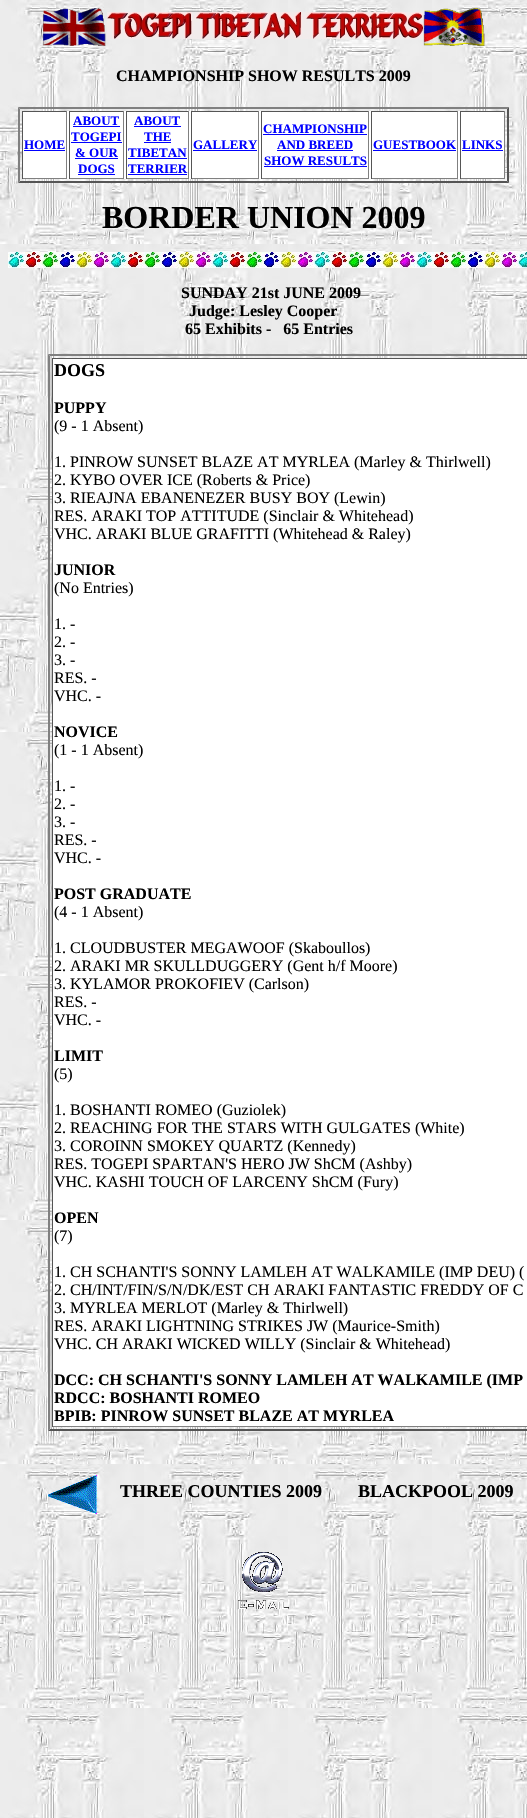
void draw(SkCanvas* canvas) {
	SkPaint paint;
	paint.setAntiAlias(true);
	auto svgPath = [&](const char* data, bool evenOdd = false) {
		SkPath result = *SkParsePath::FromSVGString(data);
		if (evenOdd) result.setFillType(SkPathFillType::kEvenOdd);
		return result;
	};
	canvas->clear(0xffffffff);
	canvas->drawImageRect(SkImages::DeferredFromEncodedData(SkData::MakeFromFileName("img1.png")), SkRect::MakeXYWH(0, 0, 527, 1818), SkSamplingOptions());
	canvas->drawImageRect(SkImages::DeferredFromEncodedData(SkData::MakeFromFileName("img2.png")), SkRect::MakeXYWH(42, 8, 64, 38), SkSamplingOptions());
	canvas->drawImageRect(SkImages::DeferredFromEncodedData(SkData::MakeFromFileName("img3.png")), SkRect::MakeXYWH(107, 12, 316, 27), SkSamplingOptions());
	canvas->drawImageRect(SkImages::DeferredFromEncodedData(SkData::MakeFromFileName("img4.png")), SkRect::MakeXYWH(423, 8, 62, 38), SkSamplingOptions());
	SkFont f1(fontMgr->matchFamilyStyle("Liberation Serif", SkFontStyle::Bold()), 16);
	f1.setSubpixel(true);
	paint.setColor(0xff000000);
	canvas->drawString("CHAMPIONSHIP SHOW RESULTS 2009", 116, 81, f1, paint);
	paint.setColor(0xff808080);
	canvas->drawPath(svgPath("M18 107H509L507 109H20Z"), paint);
	paint.setColor(0xff555555);
	canvas->drawPath(svgPath("M509 107V183L507 181V109Z"), paint);
	canvas->drawPath(svgPath("M509 183H18L20 181H507Z"), paint);
	paint.setColor(0xff808080);
	canvas->drawPath(svgPath("M18 183V107L20 109V181Z"), paint);
	paint.setColor(0xffffffff);
	canvas->drawRect(SkRect::MakeXYWH(23, 111, 481, 68), paint);
	paint.setColor(0xff555555);
	canvas->drawRect(SkRect::MakeXYWH(22, 111, 45, 1), paint);
	paint.setColor(0xff808080);
	canvas->drawRect(SkRect::MakeXYWH(66, 111, 1, 68), paint);
	canvas->drawRect(SkRect::MakeXYWH(22, 178, 45, 1), paint);
	paint.setColor(0xff555555);
	canvas->drawRect(SkRect::MakeXYWH(22, 111, 1, 68), paint);
	SkFont f2(fontMgr->matchFamilyStyle("Liberation Serif", SkFontStyle::Bold()), 13);
	f2.setSubpixel(true);
	paint.setColor(0xff0000ff);
	canvas->drawString("HOME", 24, 149, f2, paint);
	canvas->drawRect(SkRect::MakeXYWH(24, 150, 41, 1), paint);
	paint.setColor(0xff555555);
	canvas->drawRect(SkRect::MakeXYWH(69, 111, 55, 1), paint);
	paint.setColor(0xff808080);
	canvas->drawRect(SkRect::MakeXYWH(123, 111, 1, 68), paint);
	canvas->drawRect(SkRect::MakeXYWH(69, 178, 55, 1), paint);
	paint.setColor(0xff555555);
	canvas->drawRect(SkRect::MakeXYWH(69, 111, 1, 68), paint);
	paint.setColor(0xff0000ff);
	canvas->drawString("ABOUT", 73, 125, f2, paint);
	canvas->drawRect(SkRect::MakeXYWH(73, 126, 47, 1), paint);
	canvas->drawString("TOGEPI", 71, 141, f2, paint);
	canvas->drawRect(SkRect::MakeXYWH(71, 142, 51, 1), paint);
	canvas->drawString("& OUR", 75, 157, f2, paint);
	canvas->drawRect(SkRect::MakeXYWH(75, 158, 43, 1), paint);
	canvas->drawString("DOGS", 78, 173, f2, paint);
	canvas->drawRect(SkRect::MakeXYWH(78, 174, 37, 1), paint);
	paint.setColor(0xff555555);
	canvas->drawRect(SkRect::MakeXYWH(126, 111, 63, 1), paint);
	paint.setColor(0xff808080);
	canvas->drawRect(SkRect::MakeXYWH(188, 111, 1, 68), paint);
	canvas->drawRect(SkRect::MakeXYWH(126, 178, 63, 1), paint);
	paint.setColor(0xff555555);
	canvas->drawRect(SkRect::MakeXYWH(126, 111, 1, 68), paint);
	paint.setColor(0xff0000ff);
	canvas->drawString("ABOUT", 134, 125, f2, paint);
	canvas->drawRect(SkRect::MakeXYWH(134, 126, 47, 1), paint);
	canvas->drawString("THE", 144, 141, f2, paint);
	canvas->drawRect(SkRect::MakeXYWH(144, 142, 27, 1), paint);
	canvas->drawString("TIBETAN", 128, 157, f2, paint);
	canvas->drawRect(SkRect::MakeXYWH(128, 158, 59, 1), paint);
	canvas->drawString("TERRIER", 128, 173, f2, paint);
	canvas->drawRect(SkRect::MakeXYWH(128, 174, 59, 1), paint);
	paint.setColor(0xff555555);
	canvas->drawRect(SkRect::MakeXYWH(191, 111, 68, 1), paint);
	paint.setColor(0xff808080);
	canvas->drawRect(SkRect::MakeXYWH(258, 111, 1, 68), paint);
	canvas->drawRect(SkRect::MakeXYWH(191, 178, 68, 1), paint);
	paint.setColor(0xff555555);
	canvas->drawRect(SkRect::MakeXYWH(191, 111, 1, 68), paint);
	paint.setColor(0xff0000ff);
	canvas->drawString("GALLERY", 193, 149, f2, paint);
	canvas->drawRect(SkRect::MakeXYWH(193, 150, 64, 1), paint);
	paint.setColor(0xff555555);
	canvas->drawRect(SkRect::MakeXYWH(261, 111, 108, 1), paint);
	paint.setColor(0xff808080);
	canvas->drawRect(SkRect::MakeXYWH(368, 111, 1, 68), paint);
	canvas->drawRect(SkRect::MakeXYWH(261, 178, 108, 1), paint);
	paint.setColor(0xff555555);
	canvas->drawRect(SkRect::MakeXYWH(261, 111, 1, 68), paint);
	paint.setColor(0xff0000ff);
	canvas->drawString("CHAMPIONSHIP", 263, 133, f2, paint);
	canvas->drawRect(SkRect::MakeXYWH(263, 134, 104, 1), paint);
	canvas->drawString("AND BREED", 277, 149, f2, paint);
	canvas->drawRect(SkRect::MakeXYWH(277, 150, 76, 1), paint);
	canvas->drawString("SHOW RESULTS", 264, 165, f2, paint);
	canvas->drawRect(SkRect::MakeXYWH(264, 166, 103, 1), paint);
	paint.setColor(0xff555555);
	canvas->drawRect(SkRect::MakeXYWH(371, 111, 87, 1), paint);
	paint.setColor(0xff808080);
	canvas->drawRect(SkRect::MakeXYWH(457, 111, 1, 68), paint);
	canvas->drawRect(SkRect::MakeXYWH(371, 178, 87, 1), paint);
	paint.setColor(0xff555555);
	canvas->drawRect(SkRect::MakeXYWH(371, 111, 1, 68), paint);
	paint.setColor(0xff0000ff);
	canvas->drawString("GUESTBOOK", 373, 149, f2, paint);
	canvas->drawRect(SkRect::MakeXYWH(373, 150, 83, 1), paint);
	paint.setColor(0xff555555);
	canvas->drawRect(SkRect::MakeXYWH(460, 111, 45, 1), paint);
	paint.setColor(0xff808080);
	canvas->drawRect(SkRect::MakeXYWH(504, 111, 1, 68), paint);
	canvas->drawRect(SkRect::MakeXYWH(460, 178, 45, 1), paint);
	paint.setColor(0xff555555);
	canvas->drawRect(SkRect::MakeXYWH(460, 111, 1, 68), paint);
	paint.setColor(0xff0000ff);
	canvas->drawString("LINKS", 462, 149, f2, paint);
	canvas->drawRect(SkRect::MakeXYWH(462, 150, 41, 1), paint);
	SkFont f3(fontMgr->matchFamilyStyle("Liberation Serif", SkFontStyle::Bold()), 32);
	f3.setSubpixel(true);
	paint.setColor(0xff000000);
	canvas->drawString("BORDER UNION 2009", 102, 228, f3, paint);
	canvas->drawImageRect(SkImages::DeferredFromEncodedData(SkData::MakeFromFileName("img5.png")), SkRect::MakeXYWH(8, 252, 519, 16), SkSamplingOptions());
	canvas->drawString("SUNDAY 21st JUNE 2009", 181, 298, f1, paint);
	canvas->drawString("Judge: Lesley Cooper", 189, 316, f1, paint);
	canvas->drawString("65 Exhibits -   65 Entries", 185, 334, f1, paint);
	paint.setColor(0xff808080);
	canvas->drawPath(svgPath("M48 354H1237L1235 356H50Z"), paint);
	paint.setColor(0xff555555);
	canvas->drawPath(svgPath("M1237 1431H48L50 1429H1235Z"), paint);
	paint.setColor(0xff808080);
	canvas->drawPath(svgPath("M48 1431V354L50 356V1429Z"), paint);
	paint.setColor(0xffffffff);
	canvas->drawRect(SkRect::MakeXYWH(53, 359, 474, 1067), paint);
	paint.setColor(0xff555555);
	canvas->drawRect(SkRect::MakeXYWH(52, 358, 475, 1), paint);
	paint.setColor(0xff808080);
	canvas->drawRect(SkRect::MakeXYWH(52, 1426, 475, 1), paint);
	paint.setColor(0xff555555);
	canvas->drawRect(SkRect::MakeXYWH(52, 358, 1, 1069), paint);
	SkFont f4(fontMgr->matchFamilyStyle("Liberation Serif", SkFontStyle::Bold()), 18);
	f4.setSubpixel(true);
	paint.setColor(0xff000000);
	canvas->drawString("DOGS", 54, 376, f4, paint);
	canvas->drawString("PUPPY", 54, 413, f1, paint);
	SkFont f5(fontMgr->matchFamilyStyle("Liberation Serif", SkFontStyle::Normal()), 16);
	f5.setSubpixel(true);
	canvas->drawString("(9 - 1 Absent)", 54, 431, f5, paint);
	canvas->drawString("1. PINROW SUNSET BLAZE AT MYRLEA (Marley & Thirlwell)", 54, 467, f5, paint);
	canvas->drawString("2. KYBO OVER ICE (Roberts & Price)", 54, 485, f5, paint);
	canvas->drawString("3. RIEAJNA EBANENEZER BUSY BOY (Lewin)", 54, 503, f5, paint);
	canvas->drawString("RES. ARAKI TOP ATTITUDE (Sinclair & Whitehead)", 54, 521, f5, paint);
	canvas->drawString("VHC. ARAKI BLUE GRAFITTI (Whitehead & Raley)", 54, 539, f5, paint);
	canvas->drawString("JUNIOR", 54, 575, f1, paint);
	canvas->drawString("(No Entries)", 54, 593, f5, paint);
	canvas->drawString("1. -", 54, 629, f5, paint);
	canvas->drawString("2. -", 54, 647, f5, paint);
	canvas->drawString("3. -", 54, 665, f5, paint);
	canvas->drawString("RES. -", 54, 683, f5, paint);
	canvas->drawString("VHC. -", 54, 701, f5, paint);
	canvas->drawString("NOVICE", 54, 737, f1, paint);
	canvas->drawString("(1 - 1 Absent)", 54, 755, f5, paint);
	canvas->drawString("1. -", 54, 791, f5, paint);
	canvas->drawString("2. -", 54, 809, f5, paint);
	canvas->drawString("3. -", 54, 827, f5, paint);
	canvas->drawString("RES. -", 54, 845, f5, paint);
	canvas->drawString("VHC. -", 54, 863, f5, paint);
	canvas->drawString("POST GRADUATE", 54, 899, f1, paint);
	canvas->drawString("(4 - 1 Absent)", 54, 917, f5, paint);
	canvas->drawString("1. CLOUDBUSTER MEGAWOOF (Skaboullos)", 54, 953, f5, paint);
	canvas->drawString("2. ARAKI MR SKULLDUGGERY (Gent h/f Moore)", 54, 971, f5, paint);
	canvas->drawString("3. KYLAMOR PROKOFIEV (Carlson)", 54, 989, f5, paint);
	canvas->drawString("RES. -", 54, 1007, f5, paint);
	canvas->drawString("VHC. -", 54, 1025, f5, paint);
	canvas->drawString("LIMIT", 54, 1061, f1, paint);
	canvas->drawString("(5)", 54, 1079, f5, paint);
	canvas->drawString("1. BOSHANTI ROMEO (Guziolek)", 54, 1115, f5, paint);
	canvas->drawString("2. REACHING FOR THE STARS WITH GULGATES (White)", 54, 1133, f5, paint);
	canvas->drawString("3. COROINN SMOKEY QUARTZ (Kennedy)", 54, 1151, f5, paint);
	canvas->drawString("RES. TOGEPI SPARTAN'S HERO JW ShCM (Ashby)", 54, 1169, f5, paint);
	canvas->drawString("VHC. KASHI TOUCH OF LARCENY ShCM (Fury)", 54, 1187, f5, paint);
	canvas->drawString("OPEN", 54, 1223, f1, paint);
	canvas->drawString("(7)", 54, 1241, f5, paint);
	canvas->drawString("1. CH SCHANTI'S SONNY LAMLEH AT WALKAMILE (IMP DEU) (", 54, 1277, f5, paint);
	canvas->drawString("2. CH/INT/FIN/S/N/DK/EST CH ARAKI FANTASTIC FREDDY OF C", 54, 1295, f5, paint);
	canvas->drawString("3. MYRLEA MERLOT (Marley & Thirlwell)", 54, 1313, f5, paint);
	canvas->drawString("RES. ARAKI LIGHTNING STRIKES JW (Maurice-Smith)", 54, 1331, f5, paint);
	canvas->drawString("VHC. CH ARAKI WICKED WILLY (Sinclair & Whitehead)", 54, 1349, f5, paint);
	canvas->drawString("DCC: CH SCHANTI'S SONNY LAMLEH AT WALKAMILE (IMP", 54, 1385, f1, paint);
	canvas->drawString("RDCC: BOSHANTI ROMEO", 54, 1403, f1, paint);
	canvas->drawString("BPIB: PINROW SUNSET BLAZE AT MYRLEA", 54, 1421, f1, paint);
	canvas->drawImageRect(SkImages::DeferredFromEncodedData(SkData::MakeFromFileName("img6.png")), SkRect::MakeXYWH(48, 1475, 49, 39), SkSamplingOptions());
	canvas->drawString("THREE COUNTIES 2009        BLACKPOOL 2009", 120, 1497, f4, paint);
	canvas->drawImageRect(SkImages::DeferredFromEncodedData(SkData::MakeFromFileName("img7.png")), SkRect::MakeXYWH(238, 1552, 51, 57), SkSamplingOptions());
}
